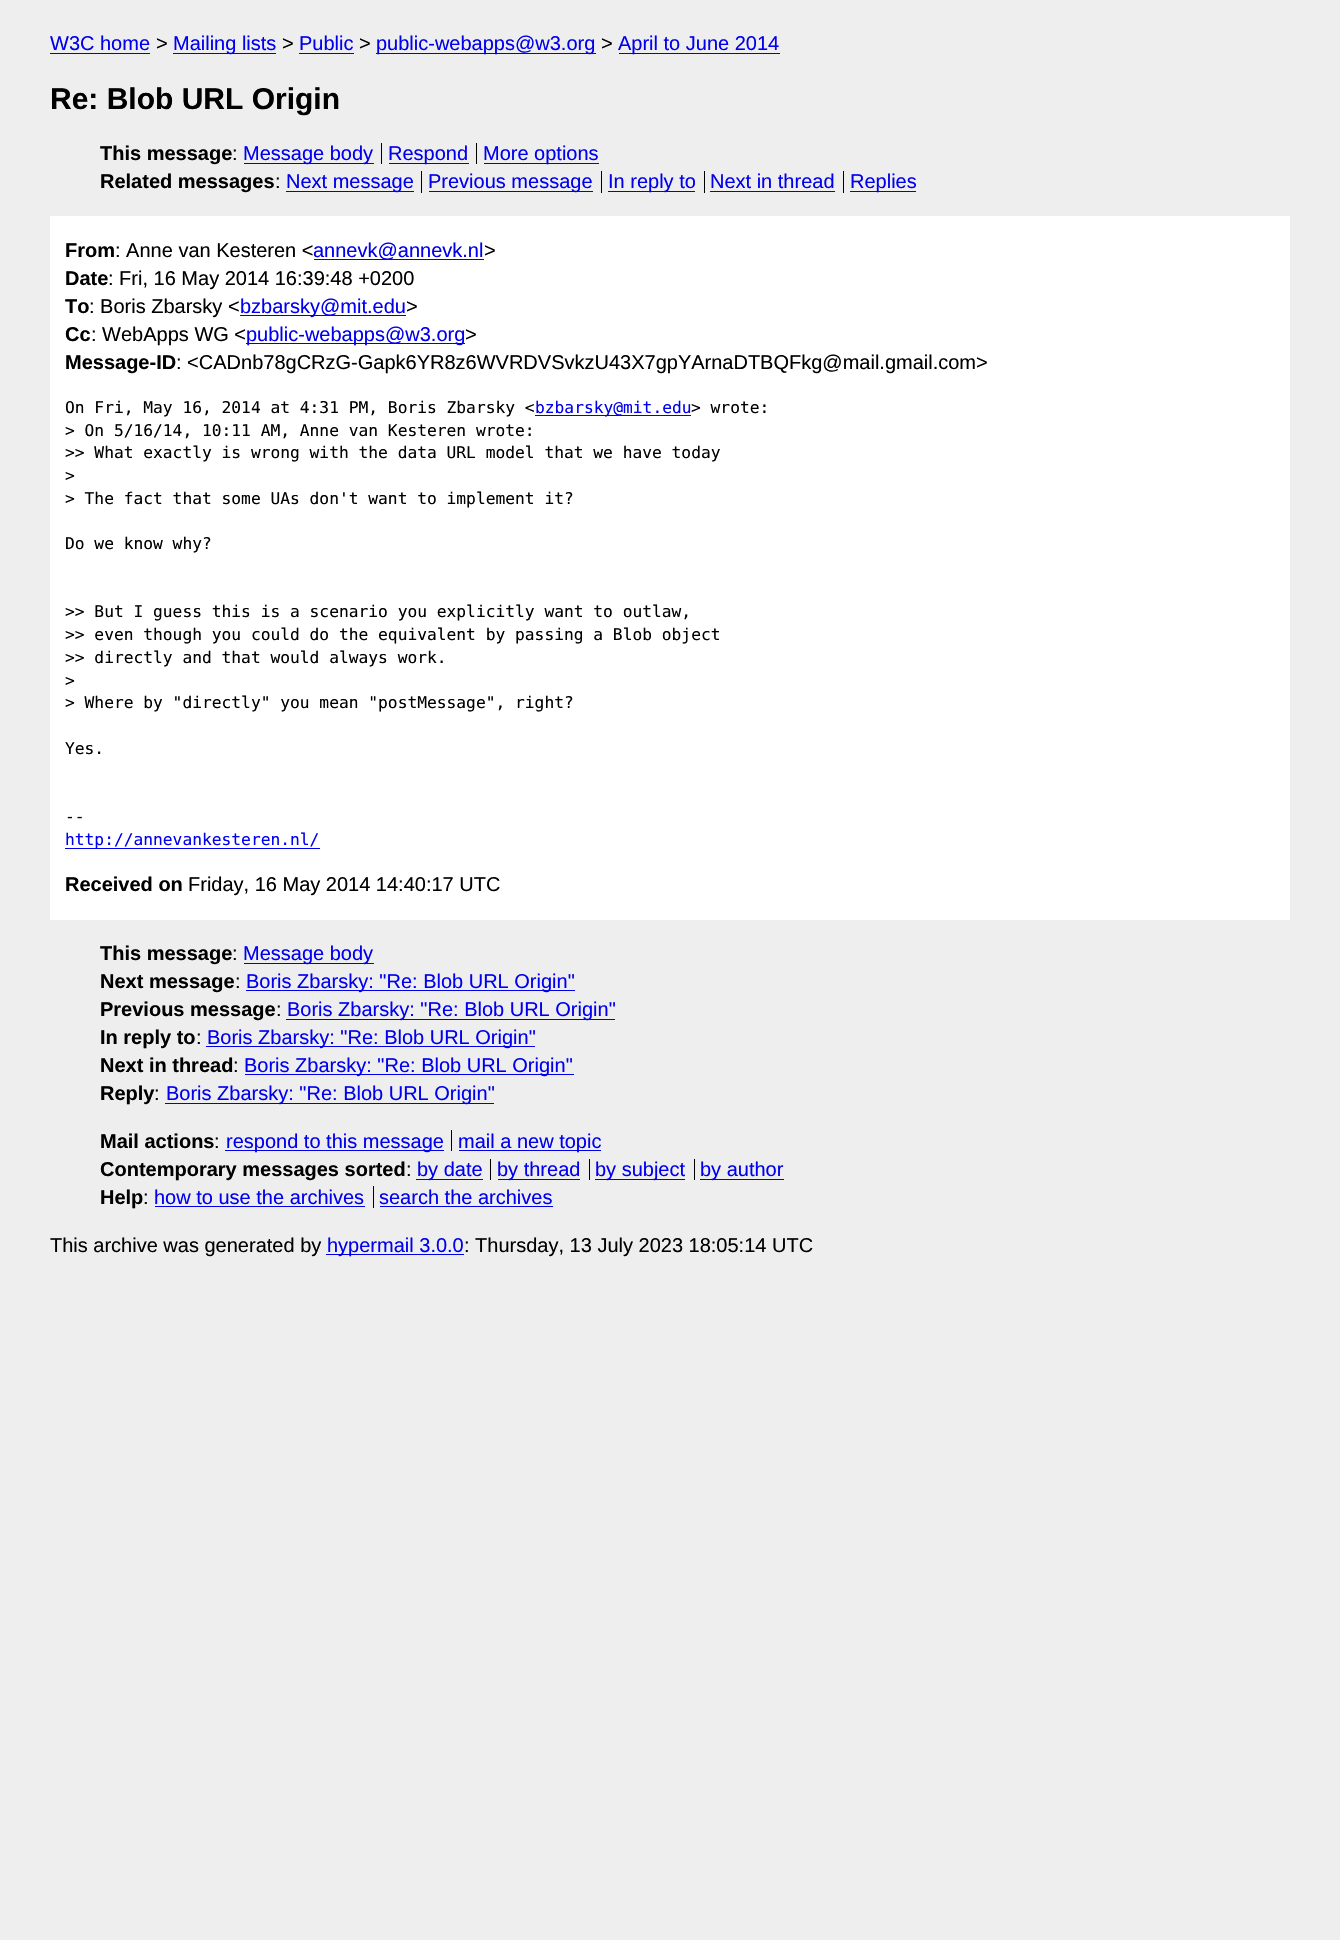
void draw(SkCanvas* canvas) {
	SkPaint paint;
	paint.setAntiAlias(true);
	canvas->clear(0xffeeeeee);
	SkFont f1(fontMgr->matchFamilyStyle("Liberation Sans", SkFontStyle::Normal()), 20);
	f1.setSubpixel(true);
	paint.setColor(0xff0000ee);
	canvas->drawString("W3C home", 50, 50, f1, paint);
	canvas->drawRect(SkRect::MakeXYWH(50, 53, 100, 1), paint);
	paint.setColor(0xff000000);
	canvas->drawString(">", 156, 50, f1, paint);
	paint.setColor(0xff0000ee);
	canvas->drawRect(SkRect::MakeXYWH(173, 53, 103, 1), paint);
	canvas->drawString("Mailing lists", 173, 50, f1, paint);
	paint.setColor(0xff000000);
	canvas->drawString(">", 282, 50, f1, paint);
	paint.setColor(0xff0000ee);
	canvas->drawString("Public", 299, 50, f1, paint);
	canvas->drawRect(SkRect::MakeXYWH(299, 53, 55, 1), paint);
	paint.setColor(0xff000000);
	canvas->drawString(">", 359, 50, f1, paint);
	paint.setColor(0xff0000ee);
	canvas->drawRect(SkRect::MakeXYWH(376, 53, 220, 1), paint);
	canvas->drawString("public-webapps@w3.org", 376, 50, f1, paint);
	paint.setColor(0xff000000);
	canvas->drawString(">", 601, 50, f1, paint);
	paint.setColor(0xff0000ee);
	canvas->drawRect(SkRect::MakeXYWH(619, 53, 161, 1), paint);
	canvas->drawString("April to June 2014", 618, 50, f1, paint);
	SkFont f2(fontMgr->matchFamilyStyle("Liberation Sans", SkFontStyle::Bold()), 30);
	f2.setSubpixel(true);
	paint.setColor(0xff000000);
	canvas->drawString("Re: Blob URL Origin", 50, 109, f2, paint);
	SkFont f3(fontMgr->matchFamilyStyle("Liberation Sans", SkFontStyle::Bold()), 20);
	f3.setSubpixel(true);
	canvas->drawString("This message", 100, 160, f3, paint);
	canvas->drawString(":", 232, 160, f1, paint);
	paint.setColor(0xff0000ee);
	canvas->drawRect(SkRect::MakeXYWH(244, 163, 130, 1), paint);
	canvas->drawString("Message body", 243, 160, f1, paint);
	paint.setColor(0xff000000);
	canvas->drawRect(SkRect::MakeXYWH(381, 143, 1, 21), paint);
	paint.setColor(0xff0000ee);
	canvas->drawRect(SkRect::MakeXYWH(389, 163, 80, 1), paint);
	canvas->drawString("Respond", 388, 160, f1, paint);
	canvas->drawRect(SkRect::MakeXYWH(484, 163, 115, 1), paint);
	canvas->drawString("More options", 483, 160, f1, paint);
	paint.setColor(0xff000000);
	canvas->drawRect(SkRect::MakeXYWH(476, 143, 1, 21), paint);
	canvas->drawString("Related messages", 100, 188, f3, paint);
	canvas->drawString(":", 275, 188, f1, paint);
	paint.setColor(0xff0000ee);
	canvas->drawRect(SkRect::MakeXYWH(286, 191, 128, 1), paint);
	canvas->drawString("Next message", 286, 188, f1, paint);
	canvas->drawRect(SkRect::MakeXYWH(429, 191, 164, 1), paint);
	canvas->drawString("Previous message", 428, 188, f1, paint);
	paint.setColor(0xff000000);
	canvas->drawRect(SkRect::MakeXYWH(421, 171, 1, 22), paint);
	paint.setColor(0xff0000ee);
	canvas->drawRect(SkRect::MakeXYWH(608, 191, 87, 1), paint);
	canvas->drawString("In reply to", 608, 188, f1, paint);
	paint.setColor(0xff000000);
	canvas->drawRect(SkRect::MakeXYWH(601, 171, 1, 22), paint);
	paint.setColor(0xff0000ee);
	canvas->drawString("Next in thread", 710, 188, f1, paint);
	paint.setColor(0xff000000);
	canvas->drawRect(SkRect::MakeXYWH(704, 171, 1, 22), paint);
	paint.setColor(0xff0000ee);
	canvas->drawRect(SkRect::MakeXYWH(710, 191, 125, 1), paint);
	canvas->drawRect(SkRect::MakeXYWH(850, 191, 66, 1), paint);
	canvas->drawString("Replies", 850, 188, f1, paint);
	paint.setColor(0xff000000);
	canvas->drawRect(SkRect::MakeXYWH(843, 171, 1, 22), paint);
	paint.setColor(0xffffffff);
	canvas->drawRect(SkRect::MakeXYWH(50, 216, 1240, 704), paint);
	paint.setColor(0xff000000);
	canvas->drawString("From", 65, 257, f3, paint);
	canvas->drawString(": Anne van Kesteren <", 115, 257, f1, paint);
	paint.setColor(0xff0000ee);
	canvas->drawRect(SkRect::MakeXYWH(314, 259, 170, 1), paint);
	canvas->drawString("annevk@annevk.nl", 313, 257, f1, paint);
	paint.setColor(0xff000000);
	canvas->drawString(">", 484, 257, f1, paint);
	canvas->drawString("Date", 65, 285, f3, paint);
	canvas->drawString(": Fri, 16 May 2014 16:39:48 +0200", 108, 285, f1, paint);
	canvas->drawString("To", 65, 313, f3, paint);
	canvas->drawString(": Boris Zbarsky <", 89, 313, f1, paint);
	paint.setColor(0xff0000ee);
	canvas->drawRect(SkRect::MakeXYWH(240, 315, 166, 1), paint);
	canvas->drawString("bzbarsky@mit.edu", 240, 313, f1, paint);
	paint.setColor(0xff000000);
	canvas->drawString(">", 406, 313, f1, paint);
	canvas->drawString("Cc", 65, 341, f3, paint);
	canvas->drawString(": WebApps WG <", 91, 341, f1, paint);
	paint.setColor(0xff0000ee);
	canvas->drawRect(SkRect::MakeXYWH(246, 343, 219, 1), paint);
	canvas->drawString("public-webapps@w3.org", 246, 341, f1, paint);
	paint.setColor(0xff000000);
	canvas->drawString(">", 465, 341, f1, paint);
	canvas->drawString("Message-ID", 65, 369, f3, paint);
	canvas->drawString(": <CADnb78gCRzG-Gapk6YR8z6WVRDVSvkzU43X7gpYArnaDTBQFkg@mail.gmail.com>", 176, 369, f1, paint);
	SkFont f4(fontMgr->matchFamilyStyle("DejaVu Sans Mono", SkFontStyle::Normal()), 16.25);
	f4.setSubpixel(true);
	canvas->drawString("On Fri, May 16, 2014 at 4:31 PM, Boris Zbarsky <", 65, 413, f4, paint);
	paint.setColor(0xff0000ee);
	canvas->drawRect(SkRect::MakeXYWH(535, 415, 156, 1), paint);
	canvas->drawString("bzbarsky@mit.edu", 535, 413, f4, paint);
	paint.setColor(0xff000000);
	canvas->drawString("> wrote:", 691, 413, f4, paint);
	canvas->drawString("> On 5/16/14, 10:11 AM, Anne van Kesteren wrote:", 65, 436, f4, paint);
	canvas->drawString(">> What exactly is wrong with the data URL model that we have today", 65, 458, f4, paint);
	canvas->drawString(">", 65, 481, f4, paint);
	canvas->drawString("> The fact that some UAs don't want to implement it?", 65, 504, f4, paint);
	canvas->drawString("Do we know why?", 65, 549, f4, paint);
	canvas->drawString(">> But I guess this is a scenario you explicitly want to outlaw,", 65, 617, f4, paint);
	canvas->drawString(">> even though you could do the equivalent by passing a Blob object", 65, 640, f4, paint);
	canvas->drawString(">> directly and that would always work.", 65, 663, f4, paint);
	canvas->drawString(">", 65, 686, f4, paint);
	canvas->drawString("> Where by \"directly\" you mean \"postMessage\", right?", 65, 708, f4, paint);
	canvas->drawString("Yes.", 65, 754, f4, paint);
	canvas->drawString("--", 65, 822, f4, paint);
	paint.setColor(0xff0000ee);
	canvas->drawRect(SkRect::MakeXYWH(65, 848, 255, 1), paint);
	canvas->drawString("http://annevankesteren.nl/", 65, 845, f4, paint);
	paint.setColor(0xff000000);
	canvas->drawString("Received on", 65, 891, f3, paint);
	canvas->drawString("Friday, 16 May 2014 14:40:17 UTC", 188, 891, f1, paint);
	canvas->drawString("This message", 100, 960, f3, paint);
	canvas->drawString(":", 232, 960, f1, paint);
	paint.setColor(0xff0000ee);
	canvas->drawRect(SkRect::MakeXYWH(244, 963, 130, 1), paint);
	canvas->drawString("Message body", 243, 960, f1, paint);
	paint.setColor(0xff000000);
	canvas->drawString("Next message", 100, 988, f3, paint);
	canvas->drawString(":", 235, 988, f1, paint);
	paint.setColor(0xff0000ee);
	canvas->drawRect(SkRect::MakeXYWH(246, 990, 329, 1), paint);
	canvas->drawString("Boris Zbarsky: \"Re: Blob URL Origin\"", 246, 988, f1, paint);
	paint.setColor(0xff000000);
	canvas->drawString("Previous message", 100, 1016, f3, paint);
	canvas->drawString(":", 276, 1016, f1, paint);
	paint.setColor(0xff0000ee);
	canvas->drawRect(SkRect::MakeXYWH(286, 1019, 329, 1), paint);
	canvas->drawString("Boris Zbarsky: \"Re: Blob URL Origin\"", 287, 1016, f1, paint);
	paint.setColor(0xff000000);
	canvas->drawString("In reply to", 100, 1044, f3, paint);
	canvas->drawString(":", 196, 1044, f1, paint);
	paint.setColor(0xff0000ee);
	canvas->drawRect(SkRect::MakeXYWH(206, 1046, 329, 1), paint);
	canvas->drawString("Boris Zbarsky: \"Re: Blob URL Origin\"", 207, 1044, f1, paint);
	paint.setColor(0xff000000);
	canvas->drawString("Next in thread", 100, 1072, f3, paint);
	canvas->drawString(":", 233, 1072, f1, paint);
	paint.setColor(0xff0000ee);
	canvas->drawRect(SkRect::MakeXYWH(245, 1074, 329, 1), paint);
	canvas->drawString("Boris Zbarsky: \"Re: Blob URL Origin\"", 244, 1072, f1, paint);
	paint.setColor(0xff000000);
	canvas->drawString("Reply", 100, 1100, f3, paint);
	canvas->drawString(":", 154, 1100, f1, paint);
	paint.setColor(0xff0000ee);
	canvas->drawRect(SkRect::MakeXYWH(165, 1103, 329, 1), paint);
	canvas->drawString("Boris Zbarsky: \"Re: Blob URL Origin\"", 166, 1100, f1, paint);
	paint.setColor(0xff000000);
	canvas->drawString("Mail actions", 100, 1148, f3, paint);
	canvas->drawString(":", 214, 1148, f1, paint);
	paint.setColor(0xff0000ee);
	canvas->drawRect(SkRect::MakeXYWH(225, 1150, 219, 1), paint);
	canvas->drawString("respond to this message", 226, 1148, f1, paint);
	canvas->drawRect(SkRect::MakeXYWH(459, 1150, 142, 1), paint);
	canvas->drawString("mail a new topic", 458, 1148, f1, paint);
	paint.setColor(0xff000000);
	canvas->drawRect(SkRect::MakeXYWH(451, 1130, 1, 21), paint);
	canvas->drawString("Contemporary messages sorted", 100, 1176, f3, paint);
	canvas->drawString(":", 406, 1176, f1, paint);
	paint.setColor(0xff0000ee);
	canvas->drawRect(SkRect::MakeXYWH(416, 1179, 67, 1), paint);
	canvas->drawString("by date", 417, 1176, f1, paint);
	canvas->drawRect(SkRect::MakeXYWH(498, 1179, 82, 1), paint);
	canvas->drawString("by thread", 497, 1176, f1, paint);
	paint.setColor(0xff000000);
	canvas->drawRect(SkRect::MakeXYWH(490, 1159, 1, 21), paint);
	paint.setColor(0xff0000ee);
	canvas->drawRect(SkRect::MakeXYWH(595, 1179, 90, 1), paint);
	canvas->drawString("by subject", 595, 1176, f1, paint);
	paint.setColor(0xff000000);
	canvas->drawRect(SkRect::MakeXYWH(589, 1159, 1, 21), paint);
	paint.setColor(0xff0000ee);
	canvas->drawRect(SkRect::MakeXYWH(700, 1179, 84, 1), paint);
	canvas->drawString("by author", 700, 1176, f1, paint);
	paint.setColor(0xff000000);
	canvas->drawRect(SkRect::MakeXYWH(694, 1159, 1, 21), paint);
	canvas->drawString("Help", 100, 1204, f3, paint);
	canvas->drawString(":", 143, 1204, f1, paint);
	paint.setColor(0xff0000ee);
	canvas->drawString("how to use the archives", 154, 1204, f1, paint);
	canvas->drawRect(SkRect::MakeXYWH(155, 1206, 210, 1), paint);
	canvas->drawString("search the archives", 379, 1204, f1, paint);
	paint.setColor(0xff000000);
	canvas->drawRect(SkRect::MakeXYWH(373, 1186, 1, 22), paint);
	paint.setColor(0xff0000ee);
	canvas->drawRect(SkRect::MakeXYWH(380, 1206, 173, 1), paint);
	paint.setColor(0xff000000);
	canvas->drawString("This archive was generated by", 50, 1252, f1, paint);
	paint.setColor(0xff0000ee);
	canvas->drawRect(SkRect::MakeXYWH(326, 1254, 138, 1), paint);
	canvas->drawString("hypermail 3.0.0", 327, 1252, f1, paint);
	paint.setColor(0xff000000);
	canvas->drawString(": Thursday, 13 July 2023 18:05:14 UTC", 464, 1252, f1, paint);
}
